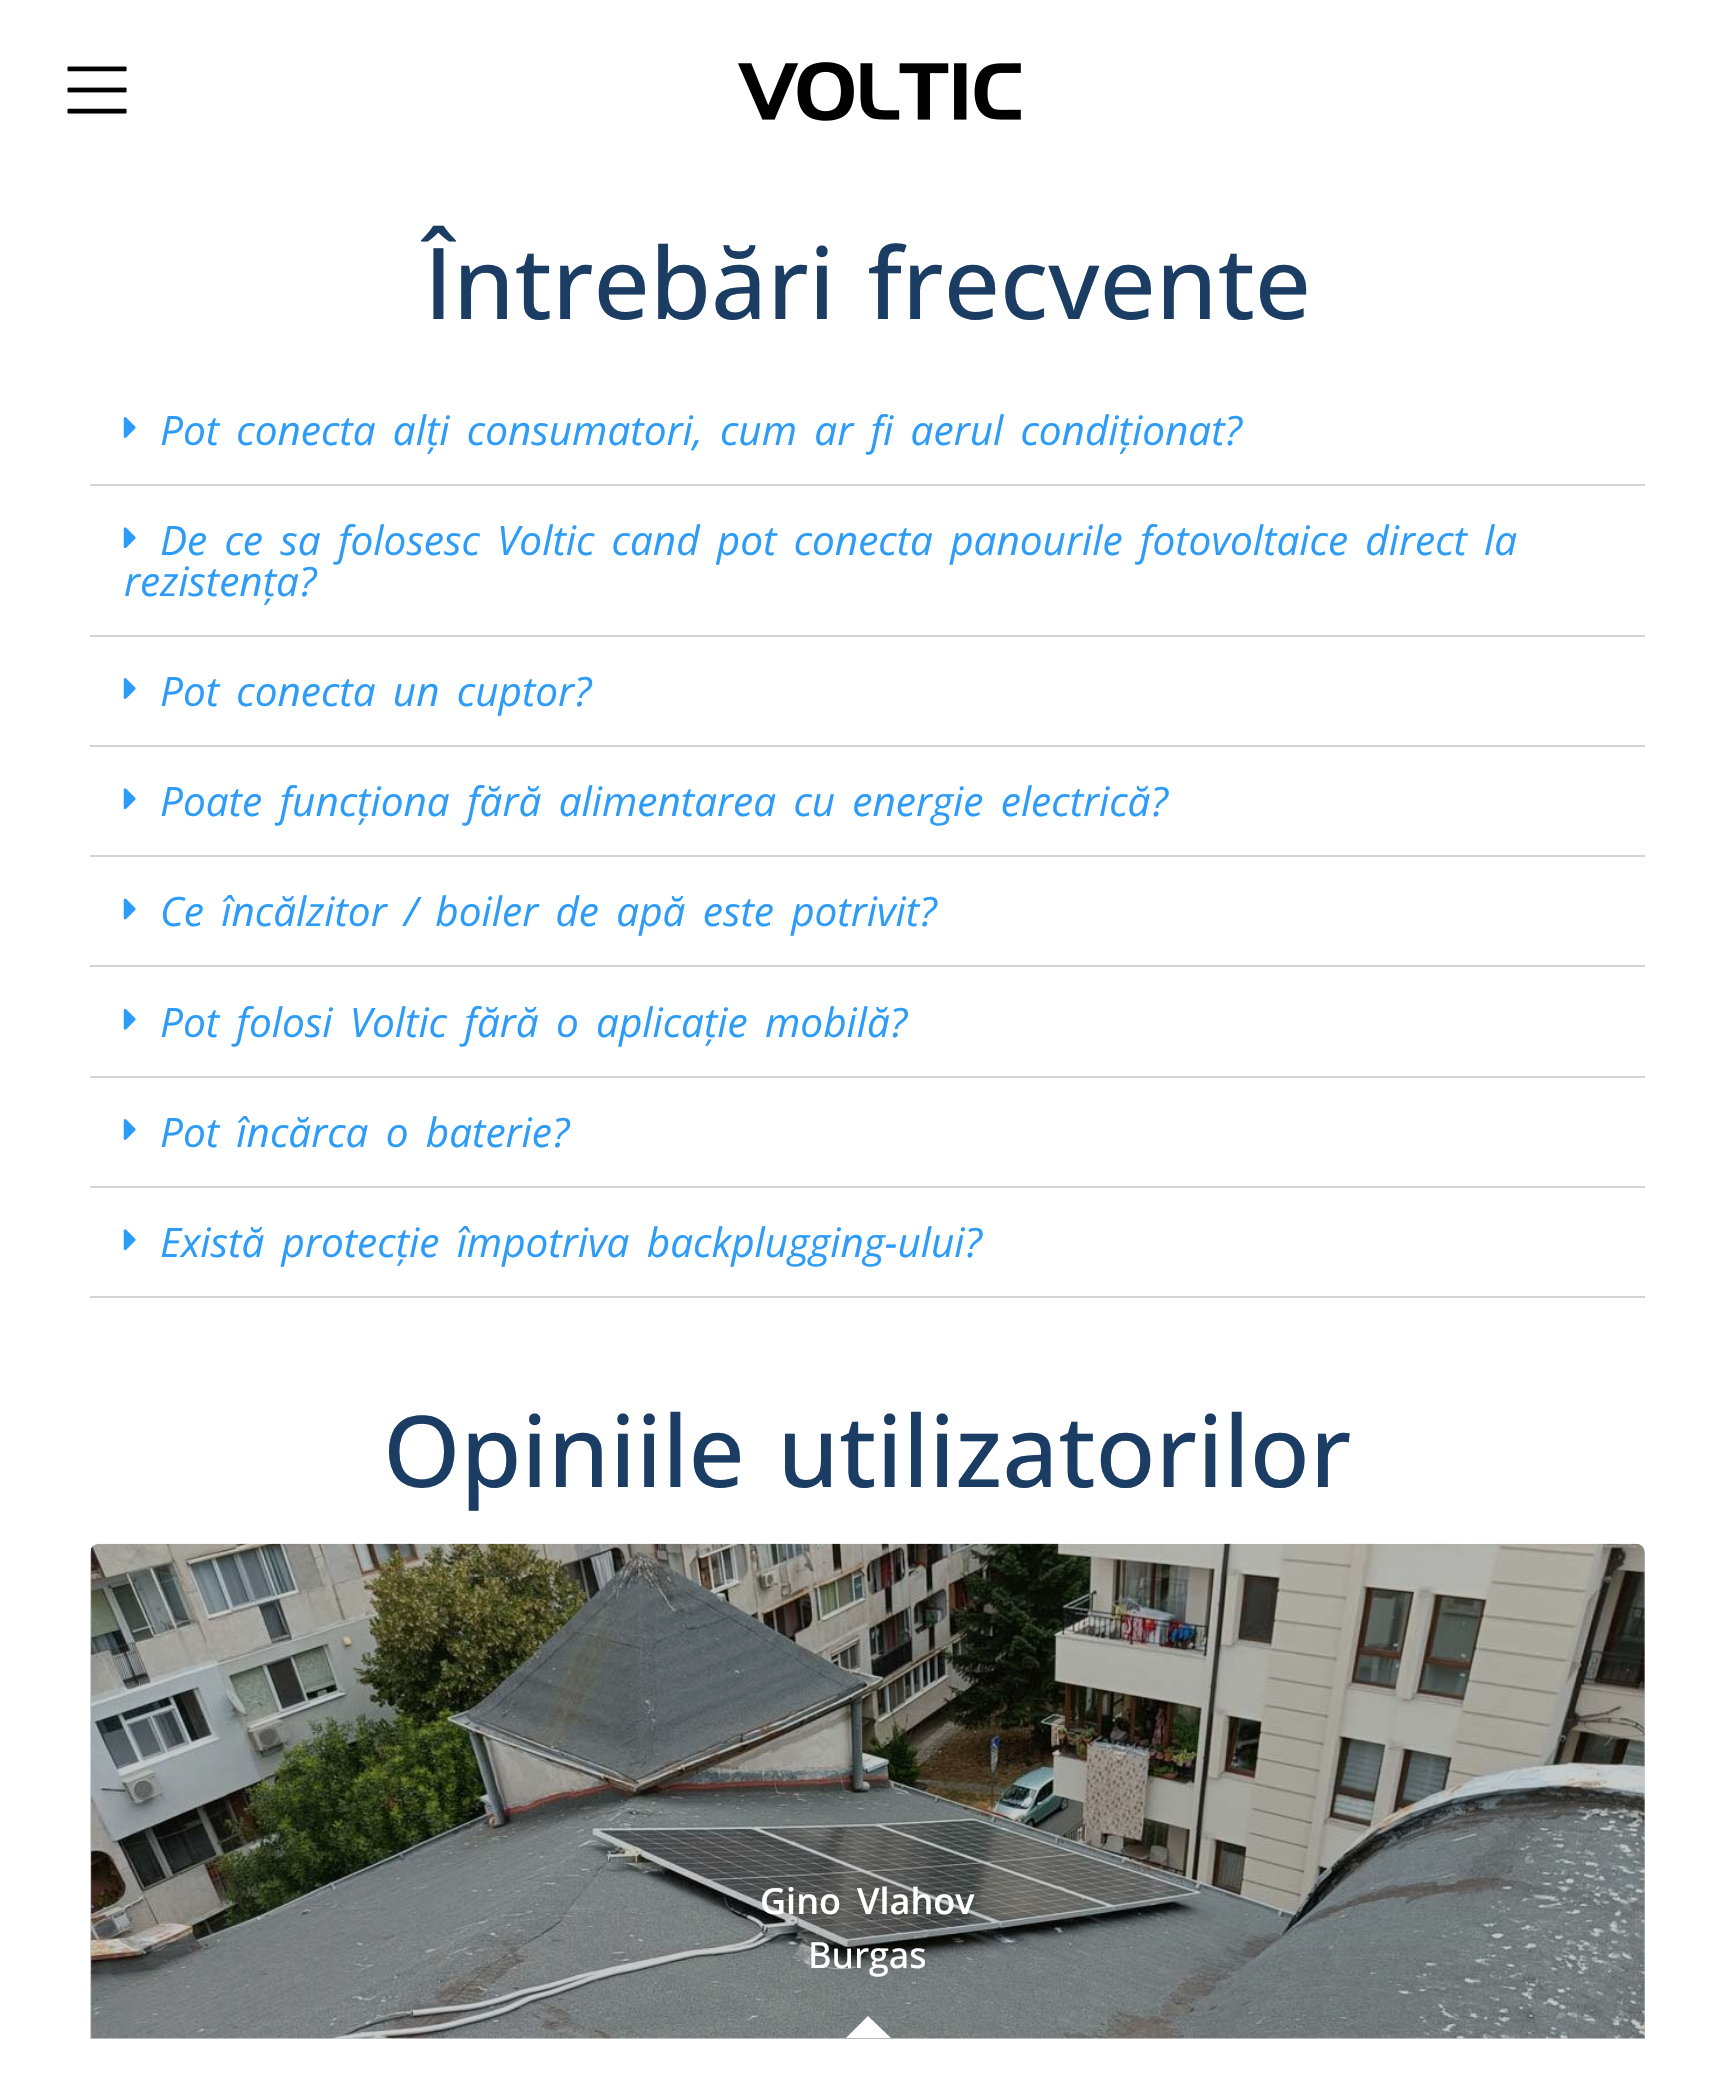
void draw(SkCanvas* canvas) {
	SkPaint paint;
	paint.setAntiAlias(true);
	auto spacedText = [&](const char* s, float x, float y, const SkFont& font, const SkPaint& ink, float letter, float word) {
		std::vector<SkGlyphID> glyphs(font.countText(s, strlen(s), SkTextEncoding::kUTF8));
		std::vector<float> xs(glyphs.size());
		font.textToGlyphs(s, strlen(s), SkTextEncoding::kUTF8, glyphs);
		font.getXPos(glyphs, xs, x);
		float extra = 0;
		for (size_t i = 0; i < glyphs.size(); i++) {
			xs[i] += extra;
			extra += letter + word * (glyphs[i] == font.unicharToGlyph(' '));
		}
		canvas->drawTextBlob(SkTextBlob::MakeFromPosHGlyphs(glyphs, xs, y, font), 0, 0, ink);
	};
	auto svgPath = [&](const char* data, bool evenOdd = false) {
		SkPath result = *SkParsePath::FromSVGString(data);
		if (evenOdd) result.setFillType(SkPathFillType::kEvenOdd);
		return result;
	};
	canvas->clear(0xffffffff);
	canvas->drawImageRect(SkImages::DeferredFromEncodedData(SkData::MakeFromFileName("img1.png")), SkRect::MakeXYWH(67, 66, 60, 48), SkSamplingOptions());
	canvas->drawImageRect(SkImages::DeferredFromEncodedData(SkData::MakeFromFileName("img2.png")), SkRect::MakeXYWH(738, 62, 283, 59), SkSamplingOptions());
	SkFont f1(fontMgr->matchFamilyStyle("Open Sans", SkFontStyle(500, SkFontStyle::kNormal_Width, SkFontStyle::kUpright_Slant)), 99);
	f1.setSubpixel(true);
	paint.setColor(0xff1b3d64);
	spacedText("Întrebări frecvente", 424, 319, f1, paint, 0, 6.75);
	paint.setColor(0xffd4d4d4);
	canvas->drawRect(SkRect::MakeXYWH(90, 484, 1555, 2), paint);
	canvas->drawImageRect(SkImages::DeferredFromEncodedData(SkData::MakeFromFileName("img3.png")), SkRect::MakeXYWH(123, 417, 13, 21), SkSamplingOptions());
	SkFont f2(fontMgr->matchFamilyStyle("Open Sans", SkFontStyle::Italic()), 40.5);
	f2.setSubpixel(true);
	paint.setColor(0xff2d9cf9);
	spacedText("Pot conecta alți consumatori, cum ar fi aerul condiționat?", 160, 445, f2, paint, 0, 6.75);
	paint.setColor(0xffd4d4d4);
	canvas->drawRect(SkRect::MakeXYWH(90, 635, 1555, 2), paint);
	canvas->drawImageRect(SkImages::DeferredFromEncodedData(SkData::MakeFromFileName("img4.png")), SkRect::MakeXYWH(123, 527, 13, 22), SkSamplingOptions());
	paint.setColor(0xff2d9cf9);
	spacedText("De ce sa folosesc Voltic cand pot conecta panourile fotovoltaice direct la", 160, 555, f2, paint, 0, 6.75);
	canvas->drawString("rezistența?", 124, 596, f2, paint);
	paint.setColor(0xffd4d4d4);
	canvas->drawRect(SkRect::MakeXYWH(90, 745, 1555, 2), paint);
	canvas->drawImageRect(SkImages::DeferredFromEncodedData(SkData::MakeFromFileName("img3.png")), SkRect::MakeXYWH(123, 678, 13, 21), SkSamplingOptions());
	paint.setColor(0xff2d9cf9);
	spacedText("Pot conecta un cuptor?", 160, 706, f2, paint, 0, 6.75);
	paint.setColor(0xffd4d4d4);
	canvas->drawRect(SkRect::MakeXYWH(90, 855, 1555, 2), paint);
	canvas->drawImageRect(SkImages::DeferredFromEncodedData(SkData::MakeFromFileName("img4.png")), SkRect::MakeXYWH(123, 788, 13, 22), SkSamplingOptions());
	paint.setColor(0xff2d9cf9);
	spacedText("Poate funcționa fără alimentarea cu energie electrică?", 160, 816, f2, paint, 0, 6.75);
	paint.setColor(0xffd4d4d4);
	canvas->drawRect(SkRect::MakeXYWH(90, 965, 1555, 2), paint);
	canvas->drawImageRect(SkImages::DeferredFromEncodedData(SkData::MakeFromFileName("img5.png")), SkRect::MakeXYWH(123, 898, 13, 22), SkSamplingOptions());
	paint.setColor(0xff2d9cf9);
	spacedText("Ce încălzitor / boiler de apă este potrivit?", 160, 926, f2, paint, 0, 6.75);
	paint.setColor(0xffd4d4d4);
	canvas->drawRect(SkRect::MakeXYWH(90, 1076, 1555, 2), paint);
	canvas->drawImageRect(SkImages::DeferredFromEncodedData(SkData::MakeFromFileName("img6.png")), SkRect::MakeXYWH(123, 1008, 13, 22), SkSamplingOptions());
	paint.setColor(0xff2d9cf9);
	spacedText("Pot folosi Voltic fără o aplicație mobilă?", 160, 1037, f2, paint, 0, 6.75);
	paint.setColor(0xffd4d4d4);
	canvas->drawRect(SkRect::MakeXYWH(90, 1186, 1555, 2), paint);
	canvas->drawImageRect(SkImages::DeferredFromEncodedData(SkData::MakeFromFileName("img3.png")), SkRect::MakeXYWH(123, 1119, 13, 21), SkSamplingOptions());
	paint.setColor(0xff2d9cf9);
	spacedText("Pot încărca o baterie?", 160, 1147, f2, paint, 0, 6.75);
	paint.setColor(0xffd4d4d4);
	canvas->drawRect(SkRect::MakeXYWH(90, 1296, 1555, 2), paint);
	canvas->drawImageRect(SkImages::DeferredFromEncodedData(SkData::MakeFromFileName("img4.png")), SkRect::MakeXYWH(123, 1229, 13, 22), SkSamplingOptions());
	paint.setColor(0xff2d9cf9);
	spacedText("Există protecție împotriva backplugging-ului?", 160, 1257, f2, paint, 0, 6.75);
	paint.setColor(0xff1b3d64);
	spacedText("Opiniile utilizatorilor", 383, 1487, f1, paint, 0, 6.75);
	canvas->drawImageRect(SkImages::DeferredFromEncodedData(SkData::MakeFromFileName("img7.png")), SkRect::MakeXYWH(91, 1543, 1554, 496), SkSamplingOptions());
	paint.setColor(0x33000000);
	canvas->drawPath(svgPath("M99 1544H1636C1641 1544 1645 1548 1645 1553V2039H90V1553C90 1548 94 1544 99 1544Z"), paint);
	SkFont f3(fontMgr->matchFamilyStyle("Open Sans", SkFontStyle(600, SkFontStyle::kNormal_Width, SkFontStyle::kUpright_Slant)), 36);
	f3.setSubpixel(true);
	paint.setColor(0xffffffff);
	spacedText("Gino Vlahov", 760, 1914, f3, paint, 0, 6.75);
	SkFont f4(fontMgr->matchFamilyStyle("Open Sans", SkFontStyle(500, SkFontStyle::kNormal_Width, SkFontStyle::kUpright_Slant)), 36);
	f4.setSubpixel(true);
	canvas->drawString("Burgas", 808, 1968, f4, paint);
	canvas->drawPath(svgPath("M891 2038H846L868 2016Z"), paint);
}
